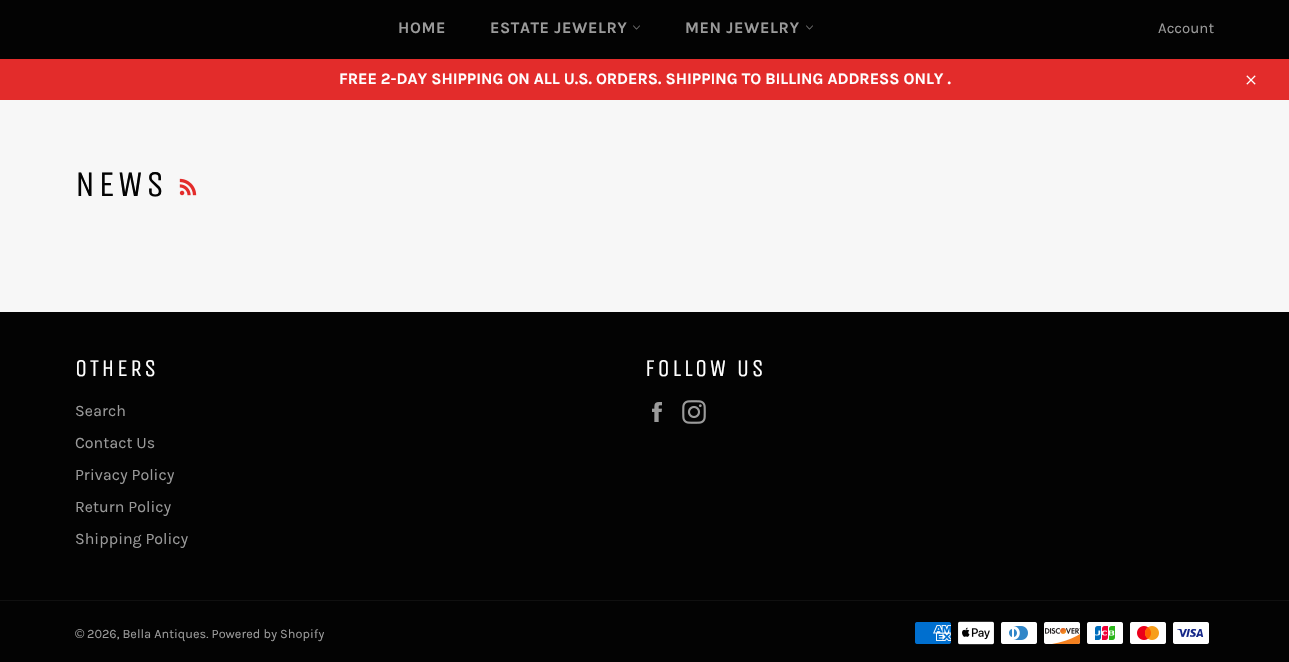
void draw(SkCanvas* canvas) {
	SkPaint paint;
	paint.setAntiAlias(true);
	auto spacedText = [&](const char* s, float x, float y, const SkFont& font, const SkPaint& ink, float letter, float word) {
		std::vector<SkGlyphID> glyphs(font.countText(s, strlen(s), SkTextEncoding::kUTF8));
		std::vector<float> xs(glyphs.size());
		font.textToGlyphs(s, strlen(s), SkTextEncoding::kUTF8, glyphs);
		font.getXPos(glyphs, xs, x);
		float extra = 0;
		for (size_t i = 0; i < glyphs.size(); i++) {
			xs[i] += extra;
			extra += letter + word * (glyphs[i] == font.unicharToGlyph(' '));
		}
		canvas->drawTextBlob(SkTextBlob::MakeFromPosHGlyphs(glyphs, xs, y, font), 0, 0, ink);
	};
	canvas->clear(0xfff7f7f7);
	paint.setColor(0xff030303);
	canvas->drawRect(SkRect::MakeXYWH(0, 0, 1289, 59), paint);
	SkFont f1(fontMgr->matchFamilyStyle("Karla", SkFontStyle::Bold()), 16);
	f1.setSubpixel(true);
	paint.setColor(0xff9a9a9a);
	spacedText("HOME", 398, 33, f1, paint, 0.6, 0);
	spacedText("ESTATE JEWELRY", 490, 33, f1, paint, 0.6, 0);
	canvas->drawImageRect(SkImages::DeferredFromEncodedData(SkData::MakeFromFileName("img1.png")), SkRect::MakeXYWH(633, 25, 7, 5), SkSamplingOptions());
	spacedText("MEN JEWELRY", 685, 33, f1, paint, 0.6, 0);
	canvas->drawImageRect(SkImages::DeferredFromEncodedData(SkData::MakeFromFileName("img1.png")), SkRect::MakeXYWH(806, 25, 7, 5), SkSamplingOptions());
	SkFont f2(fontMgr->matchFamilyStyle("Karla", SkFontStyle::Normal()), 15);
	f2.setSubpixel(true);
	canvas->drawString("Account", 1158, 33, f2, paint);
	paint.setColor(0xffe32c2b);
	canvas->drawRect(SkRect::MakeXYWH(0, 59, 1289, 41), paint);
	paint.setColor(0xffffffff);
	canvas->drawString("FREE 2-DAY SHIPPING ON ALL U.S. ORDERS. SHIPPING TO BILLING ADDRESS ONLY .", 339, 84, f1, paint);
	canvas->drawImageRect(SkImages::DeferredFromEncodedData(SkData::MakeFromFileName("img2.png")), SkRect::MakeXYWH(1246, 75, 10, 10), SkSamplingOptions());
	SkFont f3(fontMgr->matchFamilyStyle("Unica One", SkFontStyle::Normal()), 36);
	f3.setSubpixel(true);
	paint.setColor(0xff030303);
	spacedText("NEWS", 75, 196, f3, paint, 3.5, 0);
	canvas->drawImageRect(SkImages::DeferredFromEncodedData(SkData::MakeFromFileName("img3.png")), SkRect::MakeXYWH(179, 178, 18, 18), SkSamplingOptions());
	canvas->drawRect(SkRect::MakeXYWH(0, 312, 1289, 350), paint);
	SkFont f4(fontMgr->matchFamilyStyle("Unica One", SkFontStyle::Normal()), 24);
	f4.setSubpixel(true);
	paint.setColor(0xffffffff);
	spacedText("OTHERS", 75, 376, f4, paint, 2.5, 0);
	SkFont f5(fontMgr->matchFamilyStyle("Karla", SkFontStyle::Normal()), 16);
	f5.setSubpixel(true);
	paint.setColor(0xff9a9a9a);
	canvas->drawString("Search", 75, 416, f5, paint);
	canvas->drawString("Contact Us", 75, 448, f5, paint);
	canvas->drawString("Privacy Policy", 75, 480, f5, paint);
	canvas->drawString("Return Policy", 75, 512, f5, paint);
	canvas->drawString("Shipping Policy", 75, 544, f5, paint);
	paint.setColor(0xffffffff);
	spacedText("FOLLOW US", 645, 376, f4, paint, 2.5, 0);
	canvas->drawImageRect(SkImages::DeferredFromEncodedData(SkData::MakeFromFileName("img4.png")), SkRect::MakeXYWH(652, 402, 10, 20), SkSamplingOptions());
	canvas->drawImageRect(SkImages::DeferredFromEncodedData(SkData::MakeFromFileName("img5.png")), SkRect::MakeXYWH(682, 400, 24, 24), SkSamplingOptions());
	paint.setColor(0xff101010);
	canvas->drawRect(SkRect::MakeXYWH(0, 600, 1289, 1), paint);
	SkFont f6(fontMgr->matchFamilyStyle("Liberation Sans", SkFontStyle::Normal()), 12.75);
	f6.setSubpixel(true);
	paint.setColor(0xff9a9a9a);
	canvas->drawString("©", 75, 638, f6, paint);
	SkFont f7(fontMgr->matchFamilyStyle("Karla", SkFontStyle::Normal()), 12.75);
	f7.setSubpixel(true);
	canvas->drawString("2026, Bella Antiques. Powered by Shopify", 87, 638, f7, paint);
	canvas->drawImageRect(SkImages::DeferredFromEncodedData(SkData::MakeFromFileName("img6.png")), SkRect::MakeXYWH(915, 622, 36, 22), SkSamplingOptions());
	canvas->drawImageRect(SkImages::DeferredFromEncodedData(SkData::MakeFromFileName("img7.png")), SkRect::MakeXYWH(958, 621, 36, 24), SkSamplingOptions());
	canvas->drawImageRect(SkImages::DeferredFromEncodedData(SkData::MakeFromFileName("img8.png")), SkRect::MakeXYWH(1001, 622, 36, 22), SkSamplingOptions());
	canvas->drawImageRect(SkImages::DeferredFromEncodedData(SkData::MakeFromFileName("img9.png")), SkRect::MakeXYWH(1044, 622, 37, 22), SkSamplingOptions());
	canvas->drawImageRect(SkImages::DeferredFromEncodedData(SkData::MakeFromFileName("img10.png")), SkRect::MakeXYWH(1087, 622, 36, 22), SkSamplingOptions());
	canvas->drawImageRect(SkImages::DeferredFromEncodedData(SkData::MakeFromFileName("img11.png")), SkRect::MakeXYWH(1130, 622, 36, 22), SkSamplingOptions());
	canvas->drawImageRect(SkImages::DeferredFromEncodedData(SkData::MakeFromFileName("img12.png")), SkRect::MakeXYWH(1173, 622, 36, 22), SkSamplingOptions());
}
